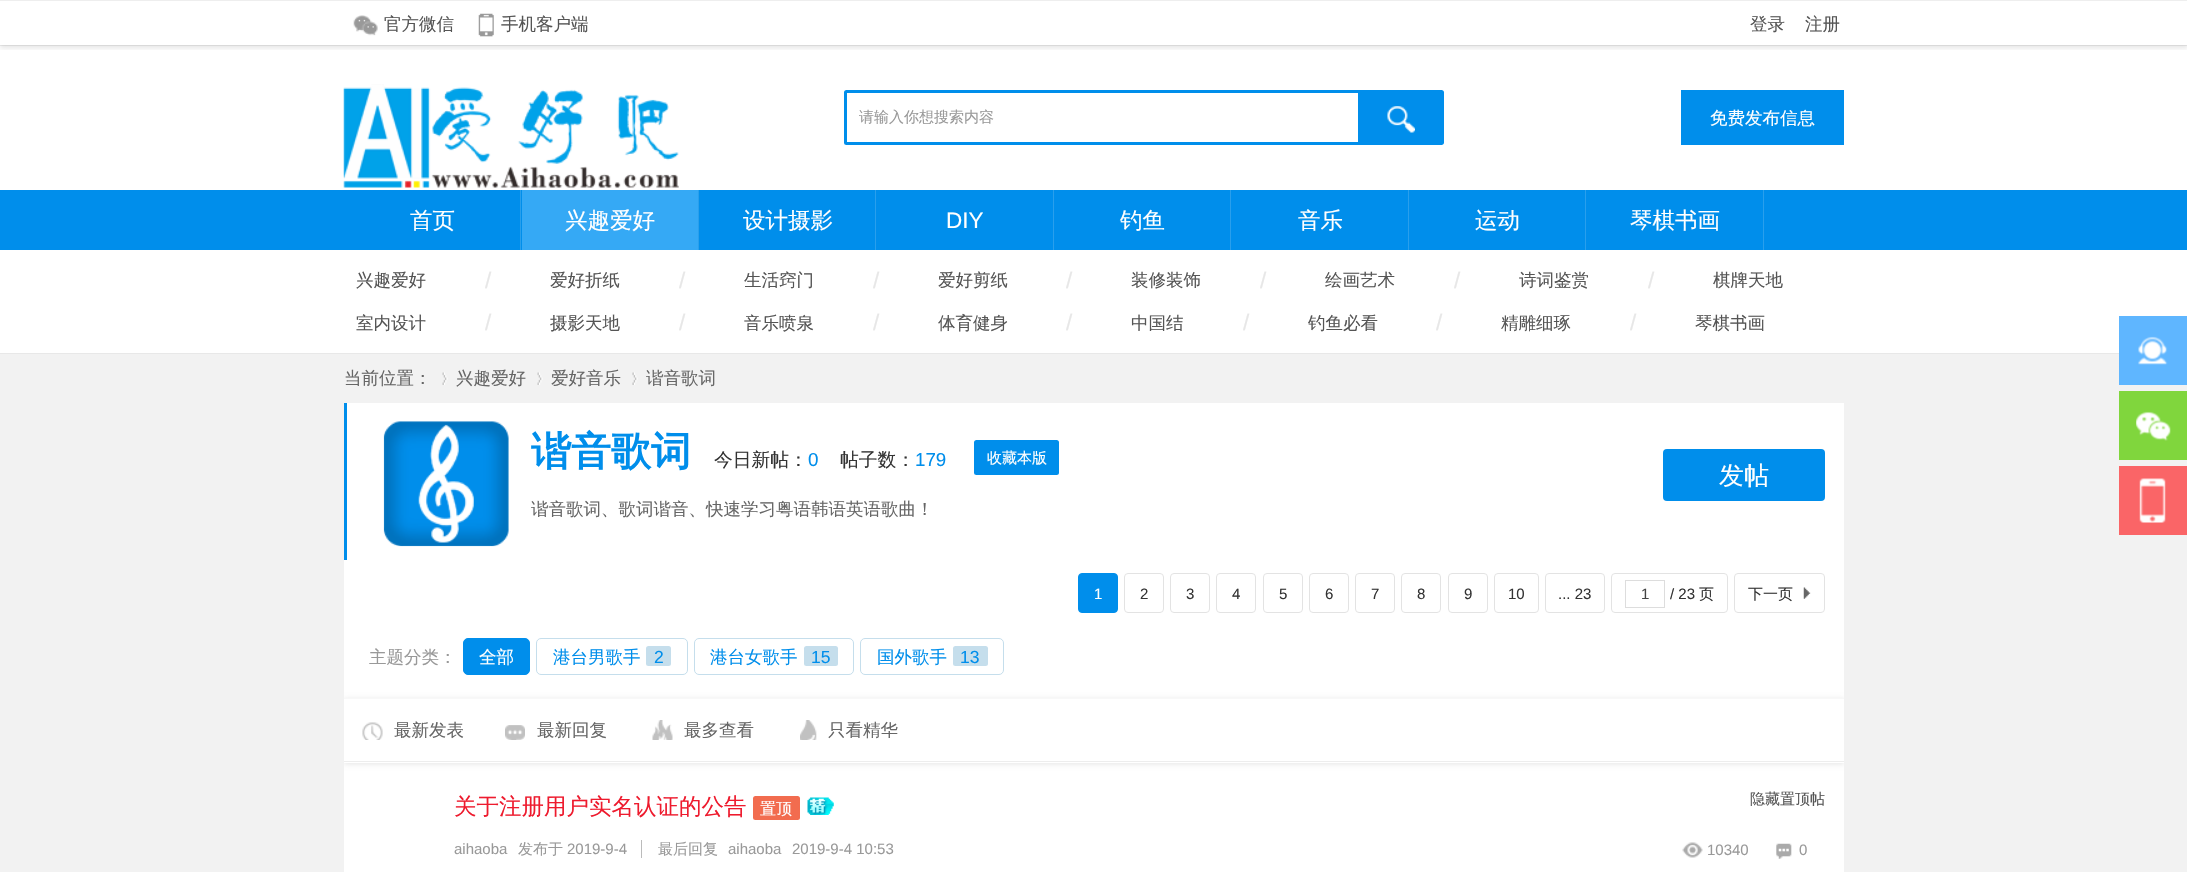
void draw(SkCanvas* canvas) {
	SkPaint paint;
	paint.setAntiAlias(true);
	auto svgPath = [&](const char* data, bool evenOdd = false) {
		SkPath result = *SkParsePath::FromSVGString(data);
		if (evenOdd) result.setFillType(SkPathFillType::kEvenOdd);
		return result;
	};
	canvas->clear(0xffffffff);
	paint.setColor(0xffeeeeee);
	canvas->drawRect(SkRect::MakeXYWH(0, 0, 2187, 1), paint);
	canvas->drawRect(SkRect::MakeXYWH(0, 45, 2187, 1), paint);
	canvas->save();
	canvas->clipRect(SkRect::MakeXYWH(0, 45, 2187, 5));
	paint.setColor(0x1a000000);
	paint.setMaskFilter(SkMaskFilter::MakeBlur(kNormal_SkBlurStyle, 2.5));
	canvas->drawRect(SkRect::MakeXYWH(0, 4, 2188, 44), paint);
	paint.setMaskFilter(nullptr);
	canvas->restore();
	canvas->drawImageRect(SkImages::DeferredFromEncodedData(SkData::MakeFromFileName("img1.png")), SkRect::MakeXYWH(353, 15, 25, 21), SkSamplingOptions());
	SkFont f1(fontMgr->matchFamilyStyle("WenQuanYi Zen Hei", SkFontStyle(500, SkFontStyle::kNormal_Width, SkFontStyle::kUpright_Slant)), 17.5);
	f1.setSubpixel(true);
	paint.setColor(0xff555555);
	canvas->drawString("官方微信", 384, 30, f1, paint);
	canvas->drawImageRect(SkImages::DeferredFromEncodedData(SkData::MakeFromFileName("img2.png")), SkRect::MakeXYWH(478, 13, 16, 24), SkSamplingOptions());
	canvas->drawString("手机客户端", 501, 30, f1, paint);
	canvas->drawString("登录", 1750, 30, f1, paint);
	canvas->drawString("注册", 1805, 30, f1, paint);
	canvas->drawImageRect(SkImages::DeferredFromEncodedData(SkData::MakeFromFileName("img3.png")), SkRect::MakeXYWH(343, 84, 336, 104), SkSamplingOptions());
	paint.setStroke(true);
	paint.setStrokeWidth(3);
	paint.setColor(0xff008eeb);
	canvas->drawPath(svgPath("M846.5 91.5H1359.5V143.5H846.5C846 143.5 845.5 143 845.5 142.5V92.5C845.5 92 846 91.5 846.5 91.5Z"), paint);
	SkFont f2(fontMgr->matchFamilyStyle("WenQuanYi Zen Hei", SkFontStyle(500, SkFontStyle::kNormal_Width, SkFontStyle::kUpright_Slant)), 15);
	f2.setSubpixel(true);
	paint.setStroke(false);
	paint.setColor(0xff999999);
	canvas->drawString("请输入你想搜索内容", 859, 122, f2, paint);
	paint.setColor(0xff008eeb);
	canvas->drawPath(svgPath("M1361 90H1441.5C1443 90 1444 91 1444 92.5V142.5C1444 144 1443 145 1441.5 145H1361Z"), paint);
	canvas->drawImageRect(SkImages::DeferredFromEncodedData(SkData::MakeFromFileName("img4.png")), SkRect::MakeXYWH(1387, 106, 28, 27), SkSamplingOptions());
	canvas->drawRect(SkRect::MakeXYWH(1681, 90, 163, 55), paint);
	paint.setColor(0xffffffff);
	canvas->drawString("免费发布信息", 1710, 124, f1, paint);
	paint.setColor(0xff008eeb);
	canvas->drawRect(SkRect::MakeXYWH(0, 190, 2187, 60), paint);
	paint.setColor(0xff299fec);
	canvas->drawRect(SkRect::MakeXYWH(520, 190, 1, 60), paint);
	SkFont f3(fontMgr->matchFamilyStyle("WenQuanYi Zen Hei", SkFontStyle(500, SkFontStyle::kNormal_Width, SkFontStyle::kUpright_Slant)), 22.5);
	f3.setSubpixel(true);
	paint.setColor(0xffffffff);
	canvas->drawString("首页", 410, 228, f3, paint);
	paint.setColor(0xff35a9f5);
	canvas->drawRect(SkRect::MakeXYWH(522, 190, 176, 60), paint);
	paint.setColor(0xff299fec);
	canvas->drawRect(SkRect::MakeXYWH(698, 190, 1, 60), paint);
	paint.setColor(0xffffffff);
	canvas->drawString("兴趣爱好", 565, 228, f3, paint);
	paint.setColor(0xff299fec);
	canvas->drawRect(SkRect::MakeXYWH(875, 190, 1, 60), paint);
	paint.setColor(0xffffffff);
	canvas->drawString("设计摄影", 743, 228, f3, paint);
	paint.setColor(0xff299fec);
	canvas->drawRect(SkRect::MakeXYWH(1053, 190, 1, 60), paint);
	SkFont f4(fontMgr->matchFamilyStyle("Liberation Sans", SkFontStyle::Normal()), 22.5);
	f4.setSubpixel(true);
	paint.setColor(0xffffffff);
	canvas->drawString("DIY", 946, 228, f4, paint);
	paint.setColor(0xff299fec);
	canvas->drawRect(SkRect::MakeXYWH(1230, 190, 1, 60), paint);
	paint.setColor(0xffffffff);
	canvas->drawString("钓鱼", 1120, 228, f3, paint);
	paint.setColor(0xff299fec);
	canvas->drawRect(SkRect::MakeXYWH(1408, 190, 1, 60), paint);
	paint.setColor(0xffffffff);
	canvas->drawString("音乐", 1298, 228, f3, paint);
	paint.setColor(0xff299fec);
	canvas->drawRect(SkRect::MakeXYWH(1585, 190, 1, 60), paint);
	paint.setColor(0xffffffff);
	canvas->drawString("运动", 1475, 228, f3, paint);
	paint.setColor(0xff299fec);
	canvas->drawRect(SkRect::MakeXYWH(1763, 190, 1, 60), paint);
	paint.setColor(0xffffffff);
	canvas->drawString("琴棋书画", 1630, 228, f3, paint);
	paint.setColor(0xff555555);
	canvas->drawString("兴趣爱好", 356, 286, f1, paint);
	paint.setColor(0xffe7e7e7);
	canvas->drawString("/", 485, 288, f4, paint);
	paint.setColor(0xff555555);
	canvas->drawString("爱好折纸", 550, 286, f1, paint);
	paint.setColor(0xffe7e7e7);
	canvas->drawString("/", 679, 288, f4, paint);
	paint.setColor(0xff555555);
	canvas->drawString("生活窍门", 744, 286, f1, paint);
	paint.setColor(0xffe7e7e7);
	canvas->drawString("/", 873, 288, f4, paint);
	paint.setColor(0xff555555);
	canvas->drawString("爱好剪纸", 938, 286, f1, paint);
	paint.setColor(0xffe7e7e7);
	canvas->drawString("/", 1066, 288, f4, paint);
	paint.setColor(0xff555555);
	canvas->drawString("装修装饰", 1131, 286, f1, paint);
	paint.setColor(0xffe7e7e7);
	canvas->drawString("/", 1260, 288, f4, paint);
	paint.setColor(0xff555555);
	canvas->drawString("绘画艺术", 1325, 286, f1, paint);
	paint.setColor(0xffe7e7e7);
	canvas->drawString("/", 1454, 288, f4, paint);
	paint.setColor(0xff555555);
	canvas->drawString("诗词鉴赏", 1519, 286, f1, paint);
	paint.setColor(0xffe7e7e7);
	canvas->drawString("/", 1648, 288, f4, paint);
	paint.setColor(0xff555555);
	canvas->drawString("棋牌天地", 1713, 286, f1, paint);
	canvas->drawString("室内设计", 356, 329, f1, paint);
	paint.setColor(0xffe7e7e7);
	canvas->drawString("/", 485, 330, f4, paint);
	paint.setColor(0xff555555);
	canvas->drawString("摄影天地", 550, 329, f1, paint);
	paint.setColor(0xffe7e7e7);
	canvas->drawString("/", 679, 330, f4, paint);
	paint.setColor(0xff555555);
	canvas->drawString("音乐喷泉", 744, 329, f1, paint);
	paint.setColor(0xffe7e7e7);
	canvas->drawString("/", 873, 330, f4, paint);
	paint.setColor(0xff555555);
	canvas->drawString("体育健身", 938, 329, f1, paint);
	paint.setColor(0xffe7e7e7);
	canvas->drawString("/", 1066, 330, f4, paint);
	paint.setColor(0xff555555);
	canvas->drawString("中国结", 1131, 329, f1, paint);
	paint.setColor(0xffe7e7e7);
	canvas->drawString("/", 1243, 330, f4, paint);
	paint.setColor(0xff555555);
	canvas->drawString("钓鱼必看", 1308, 329, f1, paint);
	paint.setColor(0xffe7e7e7);
	canvas->drawString("/", 1436, 330, f4, paint);
	paint.setColor(0xff555555);
	canvas->drawString("精雕细琢", 1501, 329, f1, paint);
	paint.setColor(0xffe7e7e7);
	canvas->drawString("/", 1630, 330, f4, paint);
	paint.setColor(0xff555555);
	canvas->drawString("琴棋书画", 1695, 329, f1, paint);
	paint.setColor(0xffe8e8e8);
	canvas->drawRect(SkRect::MakeXYWH(0, 353, 2119, 1), paint);
	paint.setColor(0xfff2f2f2);
	canvas->drawRect(SkRect::MakeXYWH(0, 354, 2187, 518), paint);
	paint.setColor(0xff666666);
	canvas->drawString("当前位置：", 344, 384, f1, paint);
	canvas->drawImageRect(SkImages::DeferredFromEncodedData(SkData::MakeFromFileName("img5.png")), SkRect::MakeXYWH(442, 372, 6, 13), SkSamplingOptions());
	canvas->drawString("兴趣爱好", 456, 384, f1, paint);
	canvas->drawImageRect(SkImages::DeferredFromEncodedData(SkData::MakeFromFileName("img5.png")), SkRect::MakeXYWH(537, 372, 6, 13), SkSamplingOptions());
	canvas->drawString("爱好音乐", 551, 384, f1, paint);
	canvas->drawImageRect(SkImages::DeferredFromEncodedData(SkData::MakeFromFileName("img6.png")), SkRect::MakeXYWH(632, 372, 6, 13), SkSamplingOptions());
	canvas->drawString("谐音歌词", 646, 384, f1, paint);
	paint.setColor(0xffffffff);
	canvas->drawRect(SkRect::MakeXYWH(344, 403, 1500, 469), paint);
	paint.setColor(0xff008eeb);
	canvas->drawRect(SkRect::MakeXYWH(344, 403, 3, 157), paint);
	canvas->drawImageRect(SkImages::DeferredFromEncodedData(SkData::MakeFromFileName("img7.png")), SkRect::MakeXYWH(383, 421, 126, 126), SkSamplingOptions());
	SkFont f5(fontMgr->matchFamilyStyle("WenQuanYi Zen Hei", SkFontStyle::Bold()), 40);
	f5.setSubpixel(true);
	canvas->drawString("谐音歌词", 531, 465, f5, paint);
	SkFont f6(fontMgr->matchFamilyStyle("WenQuanYi Zen Hei", SkFontStyle(500, SkFontStyle::kNormal_Width, SkFontStyle::kUpright_Slant)), 18.75);
	f6.setSubpixel(true);
	paint.setColor(0xff333333);
	canvas->drawString("今日新帖：", 714, 466, f6, paint);
	SkFont f7(fontMgr->matchFamilyStyle("Liberation Sans", SkFontStyle::Normal()), 18.75);
	f7.setSubpixel(true);
	paint.setColor(0xff008eeb);
	canvas->drawString("0", 808, 466, f7, paint);
	paint.setColor(0xff333333);
	canvas->drawString("帖子数：", 840, 466, f6, paint);
	paint.setColor(0xff008eeb);
	canvas->drawString("179", 915, 466, f7, paint);
	canvas->drawRoundRect(SkRect::MakeXYWH(974, 440, 85, 35), 2.5, 2.5, paint);
	paint.setColor(0xffffffff);
	canvas->drawString("收藏本版", 987, 463, f2, paint);
	paint.setColor(0xff666666);
	canvas->drawString("谐音歌词、歌词谐音、快速学习粤语韩语英语歌曲！", 531, 515, f1, paint);
	paint.setColor(0xff008eeb);
	canvas->drawRoundRect(SkRect::MakeXYWH(1663, 449, 162, 52), 4, 4, paint);
	SkFont f8(fontMgr->matchFamilyStyle("WenQuanYi Zen Hei", SkFontStyle(500, SkFontStyle::kNormal_Width, SkFontStyle::kUpright_Slant)), 25);
	f8.setSubpixel(true);
	paint.setColor(0xffffffff);
	canvas->drawString("发帖", 1719, 484, f8, paint);
	paint.setColor(0xff008eeb);
	canvas->drawRoundRect(SkRect::MakeXYWH(1078.5, 573.5, 39, 39), 3.5, 3.5, paint);
	paint.setStroke(true);
	paint.setStrokeWidth(1);
	canvas->drawRoundRect(SkRect::MakeXYWH(1078.5, 573.5, 39, 39), 3.5, 3.5, paint);
	SkFont f9(fontMgr->matchFamilyStyle("Liberation Sans", SkFontStyle::Normal()), 15);
	f9.setSubpixel(true);
	paint.setStroke(false);
	paint.setColor(0xffffffff);
	canvas->drawString("1", 1094, 599, f9, paint);
	paint.setStroke(true);
	paint.setColor(0xffe3e3e3);
	canvas->drawRoundRect(SkRect::MakeXYWH(1124.5, 573.5, 39, 39), 3.5, 3.5, paint);
	paint.setStroke(false);
	paint.setColor(0xff333333);
	canvas->drawString("2", 1140, 599, f9, paint);
	paint.setStroke(true);
	paint.setColor(0xffe3e3e3);
	canvas->drawRoundRect(SkRect::MakeXYWH(1170.5, 573.5, 39, 39), 3.5, 3.5, paint);
	paint.setStroke(false);
	paint.setColor(0xff333333);
	canvas->drawString("3", 1186, 599, f9, paint);
	paint.setStroke(true);
	paint.setColor(0xffe3e3e3);
	canvas->drawRoundRect(SkRect::MakeXYWH(1216.5, 573.5, 39, 39), 3.5, 3.5, paint);
	paint.setStroke(false);
	paint.setColor(0xff333333);
	canvas->drawString("4", 1232, 599, f9, paint);
	paint.setStroke(true);
	paint.setColor(0xffe3e3e3);
	canvas->drawRoundRect(SkRect::MakeXYWH(1263.5, 573.5, 39, 39), 3.5, 3.5, paint);
	paint.setStroke(false);
	paint.setColor(0xff333333);
	canvas->drawString("5", 1279, 599, f9, paint);
	paint.setStroke(true);
	paint.setColor(0xffe3e3e3);
	canvas->drawRoundRect(SkRect::MakeXYWH(1309.5, 573.5, 39, 39), 3.5, 3.5, paint);
	paint.setStroke(false);
	paint.setColor(0xff333333);
	canvas->drawString("6", 1325, 599, f9, paint);
	paint.setStroke(true);
	paint.setColor(0xffe3e3e3);
	canvas->drawRoundRect(SkRect::MakeXYWH(1355.5, 573.5, 39, 39), 3.5, 3.5, paint);
	paint.setStroke(false);
	paint.setColor(0xff333333);
	canvas->drawString("7", 1371, 599, f9, paint);
	paint.setStroke(true);
	paint.setColor(0xffe3e3e3);
	canvas->drawRoundRect(SkRect::MakeXYWH(1401.5, 573.5, 39, 39), 3.5, 3.5, paint);
	paint.setStroke(false);
	paint.setColor(0xff333333);
	canvas->drawString("8", 1417, 599, f9, paint);
	paint.setStroke(true);
	paint.setColor(0xffe3e3e3);
	canvas->drawRoundRect(SkRect::MakeXYWH(1448.5, 573.5, 39, 39), 3.5, 3.5, paint);
	paint.setStroke(false);
	paint.setColor(0xff333333);
	canvas->drawString("9", 1464, 599, f9, paint);
	paint.setStroke(true);
	paint.setColor(0xffe3e3e3);
	canvas->drawRoundRect(SkRect::MakeXYWH(1494.5, 573.5, 44, 39), 3.5, 3.5, paint);
	paint.setStroke(false);
	paint.setColor(0xff333333);
	canvas->drawString("10", 1508, 599, f9, paint);
	paint.setStroke(true);
	paint.setColor(0xffe3e3e3);
	canvas->drawRoundRect(SkRect::MakeXYWH(1545.5, 573.5, 59, 39), 3.5, 3.5, paint);
	paint.setStroke(false);
	paint.setColor(0xff333333);
	canvas->drawString("... 23", 1558, 599, f9, paint);
	paint.setStroke(true);
	paint.setColor(0xffe3e3e3);
	canvas->drawRoundRect(SkRect::MakeXYWH(1611.5, 573.5, 116, 39), 3.5, 3.5, paint);
	paint.setColor(0xffdddddd);
	canvas->drawRect(SkRect::MakeXYWH(1625.5, 580.5, 39, 27), paint);
	paint.setStroke(false);
	paint.setColor(0xff444444);
	canvas->drawString("1", 1641, 599, f9, paint);
	paint.setColor(0xff333333);
	canvas->drawString("/ 23", 1670, 599, f9, paint);
	canvas->drawString("页", 1699, 599, f2, paint);
	canvas->drawImageRect(SkImages::DeferredFromEncodedData(SkData::MakeFromFileName("img8.png")), SkRect::MakeXYWH(1803, 587, 8, 12), SkSamplingOptions());
	paint.setStroke(true);
	paint.setColor(0xffe3e3e3);
	canvas->drawRoundRect(SkRect::MakeXYWH(1734.5, 573.5, 90, 39), 3.5, 3.5, paint);
	paint.setStroke(false);
	paint.setColor(0xff333333);
	canvas->drawString("下一页", 1748, 599, f2, paint);
	paint.setColor(0xff999999);
	canvas->drawString("主题分类：", 369, 663, f1, paint);
	paint.setColor(0xff008eeb);
	canvas->drawRoundRect(SkRect::MakeXYWH(463.5, 638.5, 66, 36), 4.5, 4.5, paint);
	paint.setStroke(true);
	canvas->drawRoundRect(SkRect::MakeXYWH(463.5, 638.5, 66, 36), 4.5, 4.5, paint);
	paint.setStroke(false);
	paint.setColor(0xffffffff);
	canvas->drawString("全部", 479, 663, f1, paint);
	paint.setStroke(true);
	paint.setColor(0xffc5deec);
	canvas->drawRoundRect(SkRect::MakeXYWH(536.5, 638.5, 151, 36), 4.5, 4.5, paint);
	paint.setStroke(false);
	paint.setColor(0xff008eeb);
	canvas->drawString("港台男歌手", 553, 663, f1, paint);
	paint.setColor(0xffc5deec);
	canvas->drawRoundRect(SkRect::MakeXYWH(646, 646, 25, 20), 2.5, 2.5, paint);
	SkFont f10(fontMgr->matchFamilyStyle("Liberation Sans", SkFontStyle::Normal()), 17.5);
	f10.setSubpixel(true);
	paint.setColor(0xff008eeb);
	canvas->drawString("2", 654, 663, f10, paint);
	paint.setStroke(true);
	paint.setColor(0xffc5deec);
	canvas->drawRoundRect(SkRect::MakeXYWH(694.5, 638.5, 159, 36), 4.5, 4.5, paint);
	paint.setStroke(false);
	paint.setColor(0xff008eeb);
	canvas->drawString("港台女歌手", 710, 663, f1, paint);
	paint.setColor(0xffc5deec);
	canvas->drawRoundRect(SkRect::MakeXYWH(804, 646, 34, 20), 2.5, 2.5, paint);
	paint.setColor(0xff008eeb);
	canvas->drawString("15", 811, 663, f10, paint);
	paint.setStroke(true);
	paint.setColor(0xffc5deec);
	canvas->drawRoundRect(SkRect::MakeXYWH(860.5, 638.5, 143, 36), 4.5, 4.5, paint);
	paint.setStroke(false);
	paint.setColor(0xff008eeb);
	canvas->drawString("国外歌手", 877, 663, f1, paint);
	paint.setColor(0xffc5deec);
	canvas->drawRoundRect(SkRect::MakeXYWH(953, 646, 35, 20), 2.5, 2.5, paint);
	paint.setColor(0xff008eeb);
	canvas->drawString("13", 960, 663, f10, paint);
	canvas->save();
	canvas->clipRect(SkRect::MakeXYWH(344, 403, 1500, 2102));
	paint.setColor(0x1a000000);
	paint.setMaskFilter(SkMaskFilter::MakeBlur(kNormal_SkBlurStyle, 2.5));
	canvas->drawRect(SkRect::MakeXYWH(344, 699, 1500, 65), paint);
	paint.setMaskFilter(nullptr);
	canvas->restore();
	paint.setColor(0xffffffff);
	canvas->drawRect(SkRect::MakeXYWH(344, 699, 1500, 64), paint);
	paint.setColor(0xfff8f8f8);
	canvas->drawRect(SkRect::MakeXYWH(344, 698, 1500, 1), paint);
	paint.setColor(0xffededed);
	canvas->drawRect(SkRect::MakeXYWH(344, 761, 1500, 1), paint);
	canvas->drawImageRect(SkImages::DeferredFromEncodedData(SkData::MakeFromFileName("img9.png")), SkRect::MakeXYWH(362, 722, 21, 18), SkSamplingOptions());
	paint.setColor(0xff666666);
	canvas->drawString("最新发表", 394, 736, f1, paint);
	canvas->drawImageRect(SkImages::DeferredFromEncodedData(SkData::MakeFromFileName("img10.png")), SkRect::MakeXYWH(505, 725, 20, 15), SkSamplingOptions());
	canvas->drawString("最新回复", 537, 736, f1, paint);
	canvas->drawImageRect(SkImages::DeferredFromEncodedData(SkData::MakeFromFileName("img11.png")), SkRect::MakeXYWH(652, 720, 21, 20), SkSamplingOptions());
	canvas->drawString("最多查看", 684, 736, f1, paint);
	canvas->drawImageRect(SkImages::DeferredFromEncodedData(SkData::MakeFromFileName("img12.png")), SkRect::MakeXYWH(800, 720, 17, 20), SkSamplingOptions());
	canvas->drawString("只看精华", 828, 736, f1, paint);
	paint.setColor(0xffee1b2e);
	canvas->drawString("关于注册用户实名认证的公告", 454, 814, f3, paint);
	paint.setColor(0xfff26c4f);
	canvas->drawRoundRect(SkRect::MakeXYWH(753, 796, 47, 24), 2.5, 2.5, paint);
	SkFont f11(fontMgr->matchFamilyStyle("WenQuanYi Zen Hei", SkFontStyle(500, SkFontStyle::kNormal_Width, SkFontStyle::kUpright_Slant)), 16);
	f11.setSubpixel(true);
	paint.setColor(0xffffffff);
	canvas->drawString("置顶", 760, 814, f11, paint);
	canvas->drawImageRect(SkImages::DeferredFromEncodedData(SkData::MakeFromFileName("img13.png")), SkRect::MakeXYWH(807, 797, 27, 18), SkSamplingOptions());
	paint.setColor(0xff555555);
	canvas->drawString("隐藏置顶帖", 1750, 804, f2, paint);
	paint.setColor(0xff999999);
	canvas->drawString("aihaoba", 454, 854, f9, paint);
	canvas->drawString("发布于", 518, 854, f2, paint);
	canvas->drawString("2019-9-4", 567, 854, f9, paint);
	paint.setColor(0xffbbbbbb);
	canvas->drawRect(SkRect::MakeXYWH(641, 840, 1, 18), paint);
	paint.setColor(0xff999999);
	canvas->drawString("最后回复", 658, 854, f2, paint);
	canvas->drawString("aihaoba", 728, 854, f9, paint);
	canvas->drawString("2019-9-4 10:53", 792, 854, f9, paint);
	canvas->drawImageRect(SkImages::DeferredFromEncodedData(SkData::MakeFromFileName("img14.png")), SkRect::MakeXYWH(1682, 842, 21, 16), SkSamplingOptions());
	canvas->drawString("10340", 1707, 855, f9, paint);
	canvas->drawImageRect(SkImages::DeferredFromEncodedData(SkData::MakeFromFileName("img15.png")), SkRect::MakeXYWH(1776, 843, 16, 16), SkSamplingOptions());
	canvas->drawString("0", 1799, 855, f9, paint);
	paint.setColor(0xff5fb6ff);
	canvas->drawRect(SkRect::MakeXYWH(2119, 316, 68, 69), paint);
	canvas->drawImageRect(SkImages::DeferredFromEncodedData(SkData::MakeFromFileName("img16.png")), SkRect::MakeXYWH(2138, 336, 30, 29), SkSamplingOptions());
	paint.setColor(0xff80d63d);
	canvas->drawRect(SkRect::MakeXYWH(2119, 391, 68, 69), paint);
	canvas->drawImageRect(SkImages::DeferredFromEncodedData(SkData::MakeFromFileName("img17.png")), SkRect::MakeXYWH(2136, 411, 35, 30), SkSamplingOptions());
	paint.setColor(0xfffa6567);
	canvas->drawRect(SkRect::MakeXYWH(2119, 466, 68, 69), paint);
	canvas->drawImageRect(SkImages::DeferredFromEncodedData(SkData::MakeFromFileName("img18.png")), SkRect::MakeXYWH(2139, 478, 27, 45), SkSamplingOptions());
}
